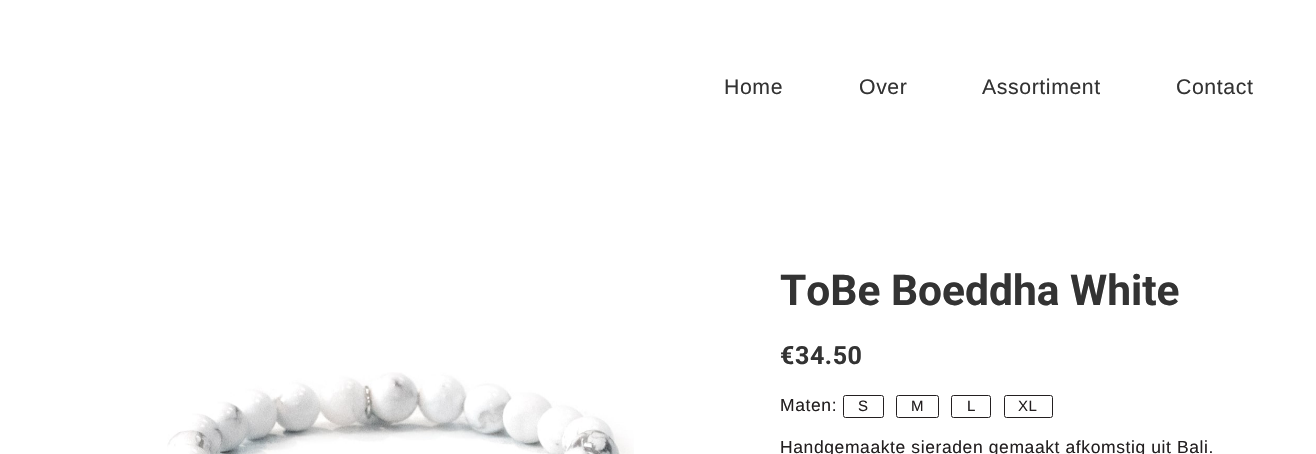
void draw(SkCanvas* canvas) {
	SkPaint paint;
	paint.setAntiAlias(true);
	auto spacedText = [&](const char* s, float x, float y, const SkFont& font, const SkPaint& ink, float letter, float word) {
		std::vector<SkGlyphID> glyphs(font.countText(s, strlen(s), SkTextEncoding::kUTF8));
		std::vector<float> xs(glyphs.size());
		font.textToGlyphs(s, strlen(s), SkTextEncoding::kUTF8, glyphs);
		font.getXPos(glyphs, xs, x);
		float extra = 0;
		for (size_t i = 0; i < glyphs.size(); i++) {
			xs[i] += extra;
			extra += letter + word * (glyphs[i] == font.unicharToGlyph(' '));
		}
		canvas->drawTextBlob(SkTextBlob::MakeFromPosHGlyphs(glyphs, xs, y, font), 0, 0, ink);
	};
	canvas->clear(0xffffffff);
	SkFont f1(fontMgr->matchFamilyStyle("Liberation Sans", SkFontStyle::Normal()), 21.25);
	f1.setSubpixel(true);
	paint.setColor(0xff333333);
	spacedText("Home", 724, 94, f1, paint, 0.6, 0);
	spacedText("Over", 859, 94, f1, paint, 0.6, 0);
	spacedText("Assortiment", 982, 94, f1, paint, 0.6, 0);
	spacedText("Contact", 1176, 94, f1, paint, 0.6, 0);
	canvas->drawImageRect(SkImages::DeferredFromEncodedData(SkData::MakeFromFileName("img1.png")), SkRect::MakeXYWH(167, 372, 467, 82), SkSamplingOptions());
	SkFont f2(fontMgr->matchFamilyStyle("Roboto", SkFontStyle::Bold()), 42.5);
	f2.setSubpixel(true);
	canvas->drawString("ToBe Boeddha White", 780, 305, f2, paint);
	SkFont f3(fontMgr->matchFamilyStyle("Roboto", SkFontStyle::Bold()), 25);
	f3.setSubpixel(true);
	spacedText("€34.50", 780, 364, f3, paint, 0.6, 0);
	SkFont f4(fontMgr->matchFamilyStyle("Liberation Sans", SkFontStyle::Normal()), 17.5);
	f4.setSubpixel(true);
	paint.setColor(0xff231f20);
	spacedText("Maten:", 780, 411, f4, paint, 0.6, 0);
	paint.setStroke(true);
	paint.setStrokeWidth(1);
	canvas->drawRoundRect(SkRect::MakeXYWH(843.5, 395.5, 40, 22), 2, 2, paint);
	SkFont f5(fontMgr->matchFamilyStyle("Liberation Sans", SkFontStyle::Normal()), 15);
	f5.setSubpixel(true);
	paint.setStroke(false);
	spacedText("S", 858, 411, f5, paint, 0.6, 0);
	paint.setStroke(true);
	canvas->drawRoundRect(SkRect::MakeXYWH(896.5, 395.5, 42, 22), 2, 2, paint);
	paint.setStroke(false);
	spacedText("M", 911, 411, f5, paint, 0.6, 0);
	paint.setStroke(true);
	canvas->drawRoundRect(SkRect::MakeXYWH(951.5, 395.5, 39, 22), 2, 2, paint);
	paint.setStroke(false);
	spacedText("L", 967, 411, f5, paint, 0.6, 0);
	paint.setStroke(true);
	canvas->drawRoundRect(SkRect::MakeXYWH(1004.5, 395.5, 48, 22), 2, 2, paint);
	paint.setStroke(false);
	spacedText("XL", 1018, 411, f5, paint, 0.6, 0);
	spacedText("Handgemaakte sieraden gemaakt afkomstig uit Bali.", 780, 453, f4, paint, 0.6, 0);
}
